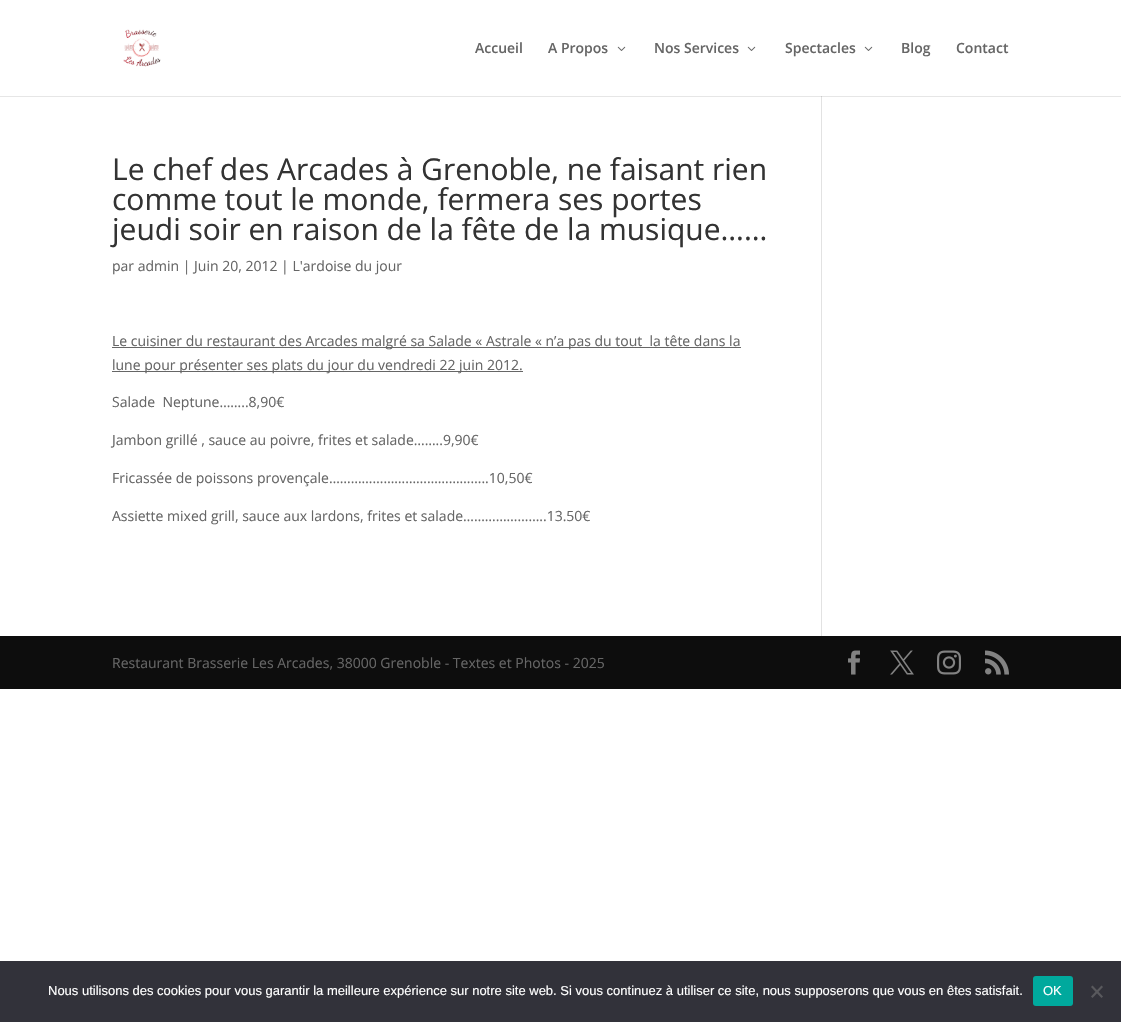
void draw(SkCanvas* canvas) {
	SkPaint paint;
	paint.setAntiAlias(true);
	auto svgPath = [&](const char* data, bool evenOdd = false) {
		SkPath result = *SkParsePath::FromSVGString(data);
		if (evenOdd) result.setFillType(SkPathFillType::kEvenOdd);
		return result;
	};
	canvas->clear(0xffffffff);
	paint.setColor(0xffe6e6e6);
	canvas->drawRect(SkRect::MakeXYWH(0, 96, 1121, 1), paint);
	canvas->drawImageRect(SkImages::DeferredFromEncodedData(SkData::MakeFromFileName("img1.png")), SkRect::MakeXYWH(123, 29, 38, 38), SkSamplingOptions());
	SkFont f1(fontMgr->matchFamilyStyle("Open Sans", SkFontStyle(600, SkFontStyle::kNormal_Width, SkFontStyle::kUpright_Slant)), 14);
	f1.setSubpixel(true);
	paint.setColor(0xff666666);
	canvas->drawString("Accueil", 475, 53, f1, paint);
	canvas->drawString("A Propos", 548, 53, f1, paint);
	canvas->drawImageRect(SkImages::DeferredFromEncodedData(SkData::MakeFromFileName("img2.png")), SkRect::MakeXYWH(617, 46, 9, 5), SkSamplingOptions());
	canvas->drawString("Nos Services", 654, 53, f1, paint);
	canvas->drawImageRect(SkImages::DeferredFromEncodedData(SkData::MakeFromFileName("img2.png")), SkRect::MakeXYWH(747, 46, 9, 5), SkSamplingOptions());
	canvas->drawString("Spectacles", 785, 53, f1, paint);
	canvas->drawImageRect(SkImages::DeferredFromEncodedData(SkData::MakeFromFileName("img2.png")), SkRect::MakeXYWH(864, 46, 9, 5), SkSamplingOptions());
	canvas->drawString("Blog", 901, 53, f1, paint);
	canvas->drawString("Contact", 956, 53, f1, paint);
	SkFont f2(fontMgr->matchFamilyStyle("Open Sans", SkFontStyle::Normal()), 30);
	f2.setSubpixel(true);
	paint.setColor(0xff333333);
	canvas->drawString("Le chef des Arcades à Grenoble, ne faisant rien", 112, 180, f2, paint);
	canvas->drawString("comme tout le monde, fermera ses portes", 112, 210, f2, paint);
	canvas->drawString("jeudi soir en raison de la fête de la musique……", 112, 240, f2, paint);
	SkFont f3(fontMgr->matchFamilyStyle("Open Sans", SkFontStyle::Normal()), 14);
	f3.setSubpixel(true);
	paint.setColor(0xff666666);
	canvas->drawString("par admin | Juin 20, 2012 | L'ardoise du jour", 112, 271, f3, paint);
	canvas->drawRect(SkRect::MakeXYWH(112, 347, 629, 1), paint);
	canvas->drawString("Le cuisiner du restaurant des Arcades malgré sa Salade « Astrale « n’a pas du tout  la tête dans la", 112, 346, f3, paint);
	canvas->drawRect(SkRect::MakeXYWH(112, 371, 411, 1), paint);
	canvas->drawString("lune pour présenter ses plats du jour du vendredi 22 juin 2012.", 112, 370, f3, paint);
	canvas->drawString("Salade  Neptune……..8,90€", 112, 407, f3, paint);
	canvas->drawString("Jambon grillé , sauce au poivre, frites et salade……..9,90€", 112, 445, f3, paint);
	canvas->drawString("Fricassée de poissons provençale……………………………………..10,50€", 112, 483, f3, paint);
	canvas->drawString("Assiette mixed grill, sauce aux lardons, frites et salade…………………..13.50€", 112, 521, f3, paint);
	paint.setColor(0xffe2e2e2);
	canvas->drawRect(SkRect::MakeXYWH(821, 96, 1, 540), paint);
	paint.setColor(0xffcbcbcb);
	canvas->drawRect(SkRect::MakeXYWH(821, 96, 1, 1), paint);
	paint.setColor(0xff0d0d0d);
	canvas->drawRect(SkRect::MakeXYWH(0, 636, 1121, 53), paint);
	paint.setColor(0xff666666);
	canvas->drawString("Restaurant Brasserie Les Arcades, 38000 Grenoble - Textes et Photos - 2025", 112, 668, f3, paint);
	canvas->drawImageRect(SkImages::DeferredFromEncodedData(SkData::MakeFromFileName("img3.png")), SkRect::MakeXYWH(848, 650, 12, 25), SkSamplingOptions());
	canvas->drawImageRect(SkImages::DeferredFromEncodedData(SkData::MakeFromFileName("img4.png")), SkRect::MakeXYWH(890, 650, 24, 25), SkSamplingOptions());
	canvas->drawImageRect(SkImages::DeferredFromEncodedData(SkData::MakeFromFileName("img5.png")), SkRect::MakeXYWH(937, 650, 24, 25), SkSamplingOptions());
	canvas->drawImageRect(SkImages::DeferredFromEncodedData(SkData::MakeFromFileName("img6.png")), SkRect::MakeXYWH(985, 650, 24, 25), SkSamplingOptions());
	paint.setColor(0xff32323a);
	canvas->drawRect(SkRect::MakeXYWH(0, 961, 1121, 61), paint);
	SkFont f4(fontMgr->matchFamilyStyle("Liberation Sans", SkFontStyle::Normal()), 13);
	f4.setSubpixel(true);
	paint.setColor(0xffffffff);
	canvas->drawString("Nous utilisons des cookies pour vous garantir la meilleure expérience sur notre site web. Si vous continuez à utiliser ce site, nous supposerons que vous en êtes satisfait.", 48, 995, f4, paint);
	paint.setColor(0xff00a99d);
	canvas->drawRoundRect(SkRect::MakeXYWH(1033, 976, 40, 30), 3, 3, paint);
	paint.setColor(0xffffffff);
	canvas->drawString("OK", 1043, 995, f4, paint);
	paint.setColor(0xff59595d);
	canvas->drawPath(svgPath("M1101.5 985.5L1103 987L1092.5 998L1091 996.5Z"), paint);
	canvas->drawPath(svgPath("M1091 987L1092.5 985.5L1103 996.5L1101.5 998Z"), paint);
}
